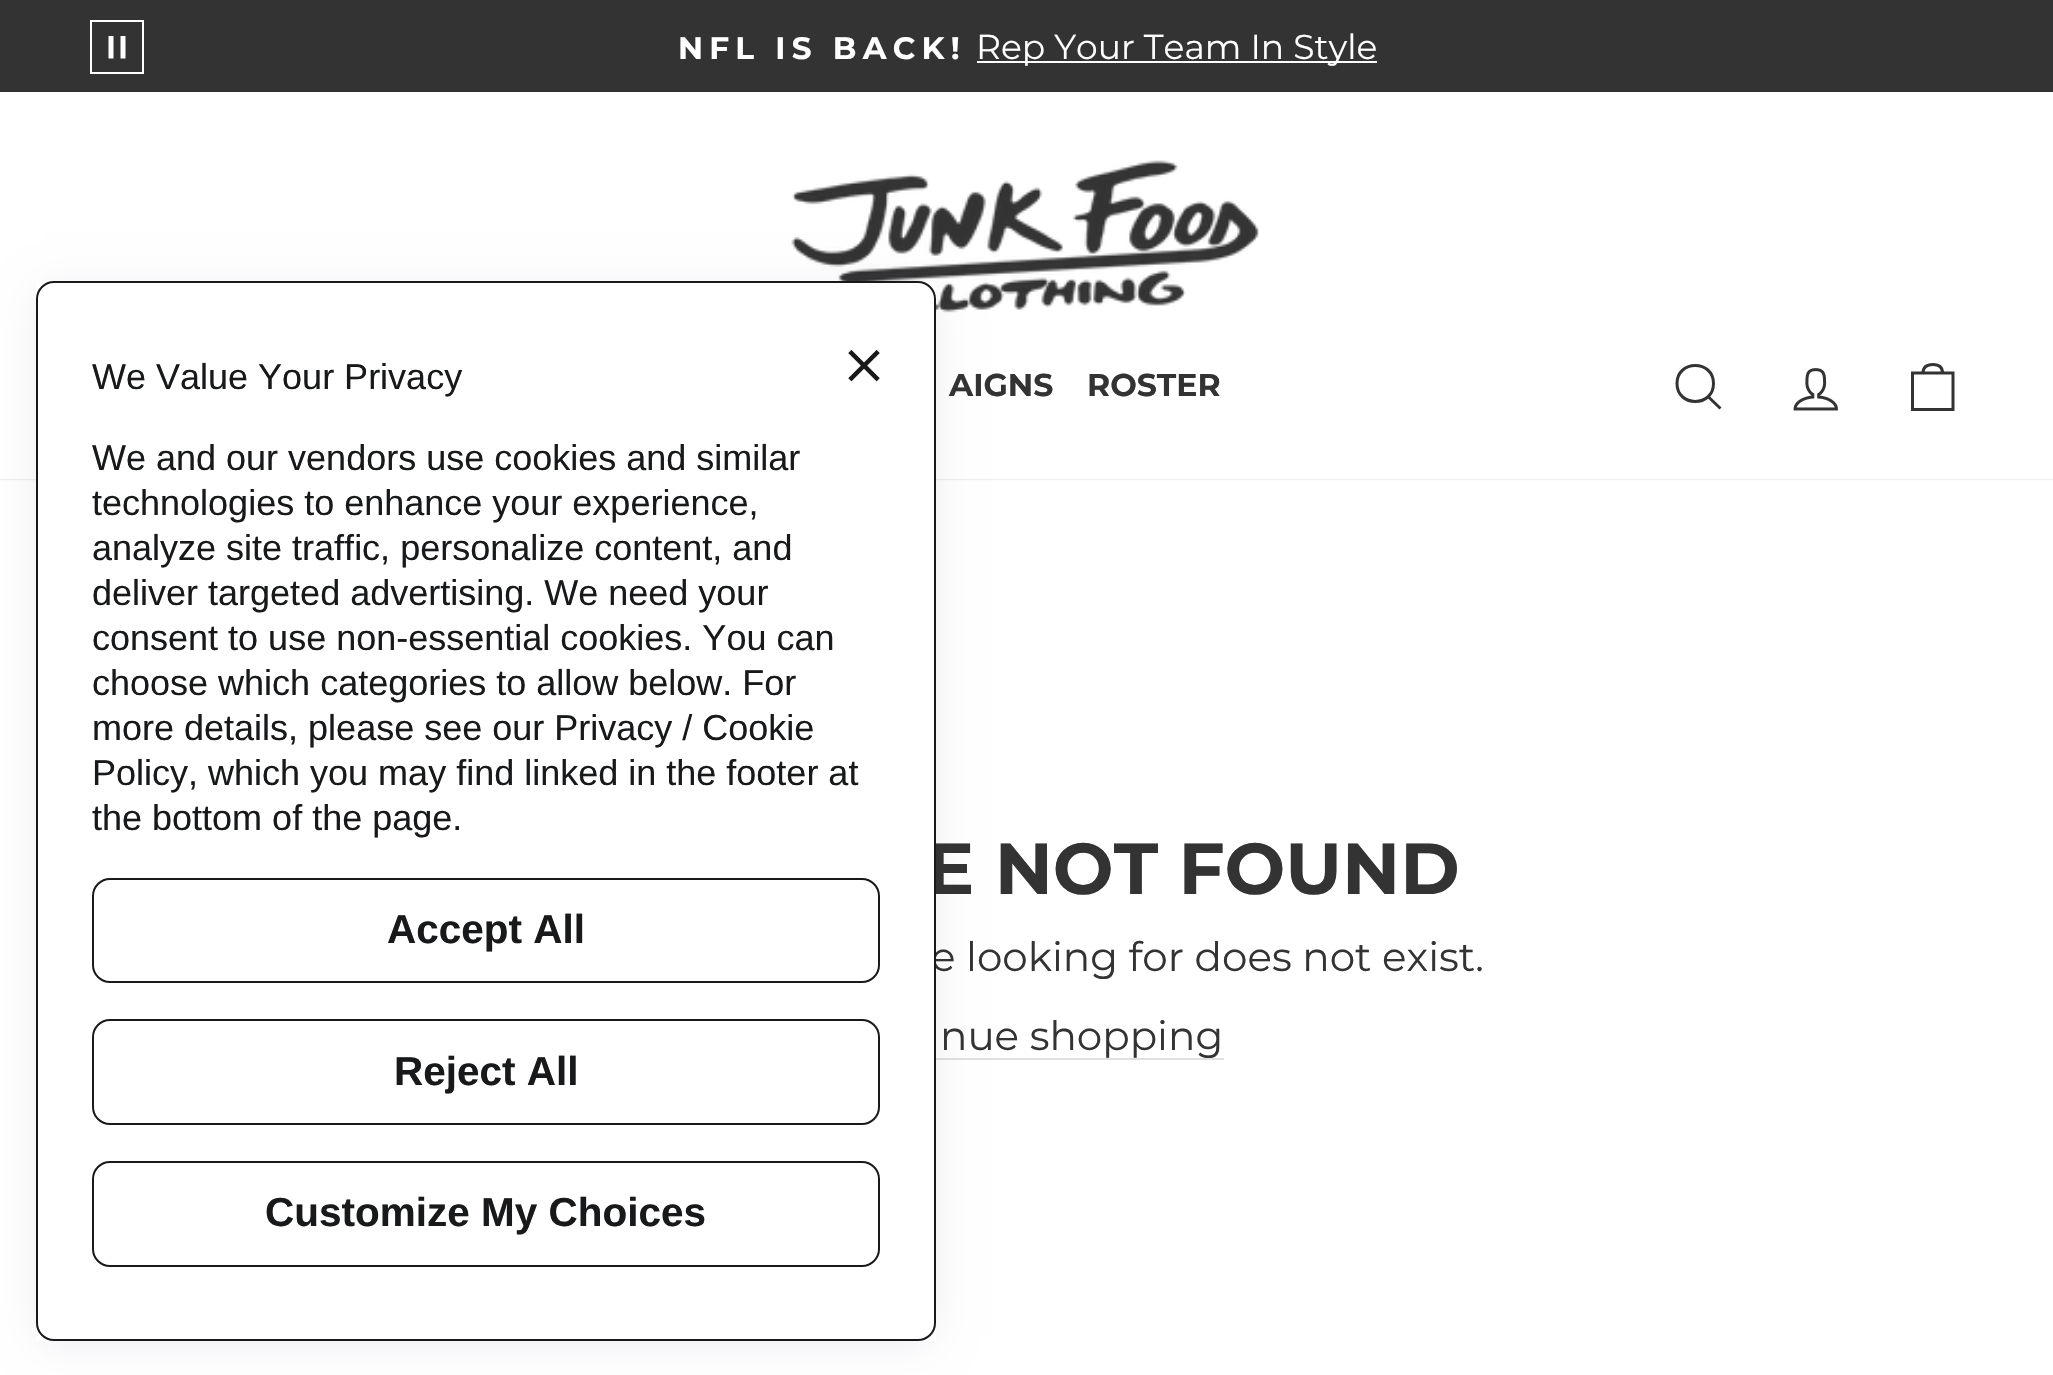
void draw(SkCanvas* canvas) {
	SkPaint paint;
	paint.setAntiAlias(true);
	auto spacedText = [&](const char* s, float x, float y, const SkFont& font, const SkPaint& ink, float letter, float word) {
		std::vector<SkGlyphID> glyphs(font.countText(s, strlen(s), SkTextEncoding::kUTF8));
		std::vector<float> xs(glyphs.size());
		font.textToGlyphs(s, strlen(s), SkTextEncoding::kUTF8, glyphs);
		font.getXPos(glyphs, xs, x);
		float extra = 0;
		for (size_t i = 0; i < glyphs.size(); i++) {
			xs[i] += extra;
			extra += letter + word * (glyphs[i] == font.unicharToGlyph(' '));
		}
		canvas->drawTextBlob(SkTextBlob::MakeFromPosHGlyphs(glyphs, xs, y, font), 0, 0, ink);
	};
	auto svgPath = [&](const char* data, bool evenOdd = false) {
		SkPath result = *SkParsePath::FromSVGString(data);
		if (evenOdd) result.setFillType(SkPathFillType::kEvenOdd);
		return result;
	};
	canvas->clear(0xffffffff);
	paint.setColor(0xff333333);
	canvas->drawRect(SkRect::MakeXYWH(0, 0, 2053, 92), paint);
	paint.setColor(0x33000000);
	paint.setMaskFilter(SkMaskFilter::MakeBlur(kNormal_SkBlurStyle, 1));
	canvas->drawRect(SkRect::MakeXYWH(0, 92, 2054, 387), paint);
	paint.setMaskFilter(nullptr);
	paint.setColor(0xffffffff);
	canvas->drawRect(SkRect::MakeXYWH(0, 92, 2053, 387), paint);
	canvas->drawImageRect(SkImages::DeferredFromEncodedData(SkData::MakeFromFileName("img2.png")), SkRect::MakeXYWH(791, 160, 468, 153), SkSamplingOptions());
	paint.setColor(0xffe0e0e0);
	canvas->drawRect(SkRect::MakeXYWH(936, 1058, 288, 2), paint);
	canvas->save();
	canvas->clipPath(svgPath("M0 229H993V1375H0ZM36 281H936V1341H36Z", true), true);
	paint.setColor(0x1a01013f);
	paint.setMaskFilter(SkMaskFilter::MakeBlur(kNormal_SkBlurStyle, 21.5));
	canvas->drawRect(SkRect::MakeXYWH(45, 295, 882, 1042), paint);
	paint.setMaskFilter(nullptr);
	canvas->restore();
	SkFont f1(fontMgr->matchFamilyStyle("Montserrat", SkFontStyle::Bold()), 72);
	f1.setSubpixel(true);
	paint.setColor(0xff333333);
	canvas->drawString("E NOT FOUND", 926, 894, f1, paint);
	SkFont f2(fontMgr->matchFamilyStyle("Montserrat", SkFontStyle::Normal()), 40.5);
	f2.setSubpixel(true);
	canvas->drawString("e looking for does not exist.", 931, 971, f2, paint);
	paint.setColor(0xffffffff);
	canvas->drawRoundRect(SkRect::MakeXYWH(37, 282, 898, 1058), 17, 17, paint);
	paint.setStroke(true);
	paint.setStrokeWidth(2);
	paint.setColor(0xff17191a);
	canvas->drawRoundRect(SkRect::MakeXYWH(37, 282, 898, 1058), 17, 17, paint);
	SkFont f3(fontMgr->matchFamilyStyle("Liberation Sans", SkFontStyle::Normal()), 36);
	f3.setSubpixel(true);
	paint.setStroke(false);
	canvas->drawString("We Value Your Privacy", 92, 389, f3, paint);
	canvas->drawImageRect(SkImages::DeferredFromEncodedData(SkData::MakeFromFileName("img1.png")), SkRect::MakeXYWH(848, 350, 32, 32), SkSamplingOptions());
	canvas->drawString("We and our vendors use cookies and similar", 92, 470, f3, paint);
	canvas->drawString("technologies to enhance your experience,", 92, 515, f3, paint);
	canvas->drawString("analyze site traffic, personalize content, and", 92, 560, f3, paint);
	canvas->drawString("deliver targeted advertising. We need your", 92, 605, f3, paint);
	canvas->drawString("consent to use non-essential cookies. You can", 92, 650, f3, paint);
	canvas->drawString("choose which categories to allow below. For", 92, 695, f3, paint);
	canvas->drawString("more details, please see our Privacy / Cookie", 92, 740, f3, paint);
	canvas->drawString("Policy, which you may find linked in the footer at", 92, 785, f3, paint);
	canvas->drawString("the bottom of the page.", 92, 830, f3, paint);
	paint.setStroke(true);
	canvas->drawRoundRect(SkRect::MakeXYWH(93, 879, 786, 103), 17, 17, paint);
	SkFont f4(fontMgr->matchFamilyStyle("Liberation Sans", SkFontStyle::Bold()), 40.5);
	f4.setSubpixel(true);
	paint.setStroke(false);
	canvas->drawString("Accept All", 387, 943, f4, paint);
	paint.setStroke(true);
	canvas->drawRoundRect(SkRect::MakeXYWH(93, 1020, 786, 104), 17, 17, paint);
	paint.setStroke(false);
	canvas->drawString("Reject All", 394, 1085, f4, paint);
	paint.setStroke(true);
	canvas->drawRoundRect(SkRect::MakeXYWH(93, 1162, 786, 104), 17, 17, paint);
	paint.setStroke(false);
	canvas->drawString("Customize My Choices", 265, 1226, f4, paint);
	paint.setStroke(true);
	paint.setColor(0xffffffff);
	canvas->drawRect(SkRect::MakeXYWH(91, 21, 52, 52), paint);
	paint.setStroke(false);
	canvas->drawPath(svgPath("M108.5 36H113.5V58.5H108.5ZM120.5 36H125.5V58.5H120.5Z", true), paint);
	SkFont f5(fontMgr->matchFamilyStyle("Montserrat", SkFontStyle::Bold()), 31);
	f5.setSubpixel(true);
	spacedText("NFL IS BACK!", 678, 59, f5, paint, 6.25, 0);
	canvas->drawRect(SkRect::MakeXYWH(977, 61, 400, 2), paint);
	SkFont f6(fontMgr->matchFamilyStyle("Montserrat", SkFontStyle::Normal()), 34.5);
	f6.setSubpixel(true);
	canvas->drawString("Rep Your Team In Style", 976, 59, f6, paint);
	SkFont f7(fontMgr->matchFamilyStyle("Montserrat", SkFontStyle::Bold()), 31.5);
	f7.setSubpixel(true);
	paint.setColor(0xff333333);
	canvas->drawString("AIGNS", 949, 396, f7, paint);
	canvas->drawString("ROSTER", 1087, 396, f7, paint);
	paint.setStroke(true);
	paint.setStrokeWidth(3);
	canvas->drawPath(svgPath("M1713.5 383.5C1713.5 407.5 1677 407.5 1677 383.5C1677 359.5 1713.5 359.5 1713.5 383.5ZM1720.5 408.5L1708.5 397"), paint);
	canvas->drawImageRect(SkImages::DeferredFromEncodedData(SkData::MakeFromFileName("img3.png")), SkRect::MakeXYWH(1793, 368, 45, 43), SkSamplingOptions());
	canvas->drawPath(svgPath("M1912.5 373H1953V409.5H1912.5ZM1923 373C1923 366 1927.5 364.5 1933 364.5C1938 364.5 1942.5 366 1942.5 373"), paint);
	paint.setStroke(false);
	canvas->drawString("nue shopping", 940, 1050, f2, paint);
}
